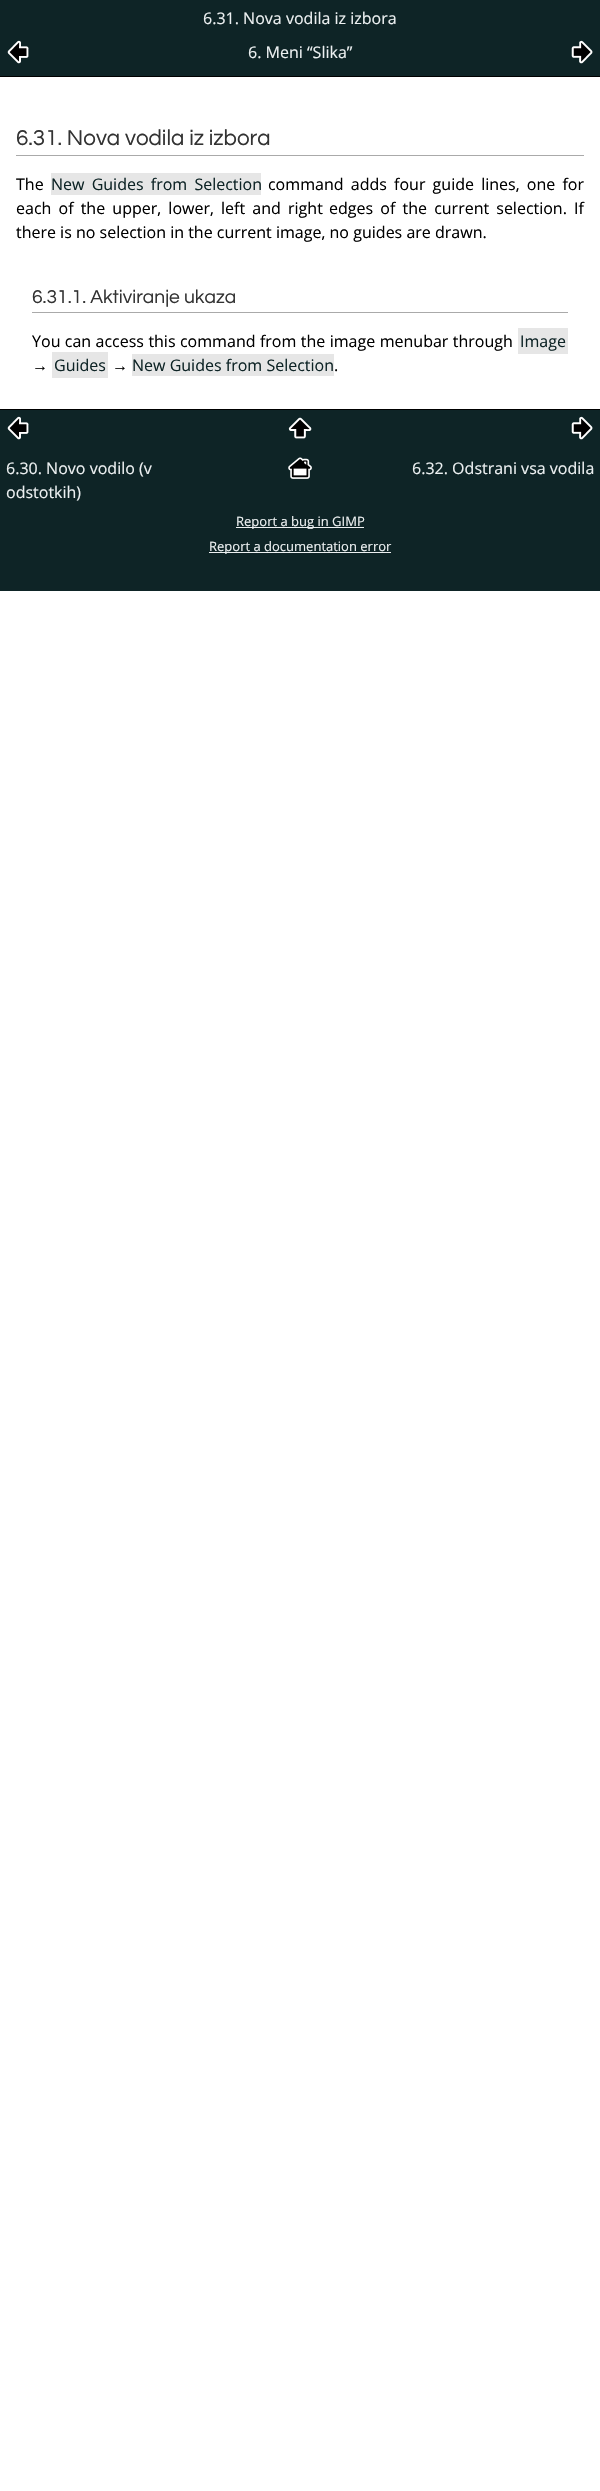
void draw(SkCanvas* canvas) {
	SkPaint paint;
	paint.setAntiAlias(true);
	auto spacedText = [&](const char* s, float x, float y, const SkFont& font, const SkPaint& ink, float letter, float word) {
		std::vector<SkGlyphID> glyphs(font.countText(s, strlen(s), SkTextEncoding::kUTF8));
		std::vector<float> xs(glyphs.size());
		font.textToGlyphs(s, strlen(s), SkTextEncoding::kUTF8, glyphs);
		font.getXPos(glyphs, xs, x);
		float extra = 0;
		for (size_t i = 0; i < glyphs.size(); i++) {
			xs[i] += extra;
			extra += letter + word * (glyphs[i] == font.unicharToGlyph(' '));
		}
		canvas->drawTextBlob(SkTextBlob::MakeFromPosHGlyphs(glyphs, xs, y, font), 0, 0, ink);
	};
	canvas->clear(0xffffffff);
	paint.setColor(0xff0e2426);
	canvas->drawRect(SkRect::MakeXYWH(0, 0, 600, 76), paint);
	paint.setColor(0xff000000);
	canvas->drawRect(SkRect::MakeXYWH(0, 76, 600, 1), paint);
	SkFont f1(fontMgr->matchFamilyStyle("Open Sans", SkFontStyle::Normal()), 16);
	f1.setSubpixel(true);
	paint.setColor(0xffecf0f1);
	canvas->drawString("6.31. Nova vodila iz izbora", 203, 24, f1, paint);
	canvas->drawImageRect(SkImages::DeferredFromEncodedData(SkData::MakeFromFileName("img1.png")), SkRect::MakeXYWH(7, 40, 22, 24), SkSamplingOptions());
	canvas->drawString("6. Meni “Slika”", 248, 58, f1, paint);
	canvas->drawImageRect(SkImages::DeferredFromEncodedData(SkData::MakeFromFileName("img2.png")), SkRect::MakeXYWH(571, 40, 22, 24), SkSamplingOptions());
	paint.setColor(0xffaaaaaa);
	canvas->drawRect(SkRect::MakeXYWH(16, 155, 568, 1), paint);
	SkFont f2(fontMgr->matchFamilyStyle("Questrial", SkFontStyle::Normal()), 22.4);
	f2.setSubpixel(true);
	paint.setColor(0xff333333);
	canvas->drawString("6.31. Nova vodila iz izbora", 16, 145, f2, paint);
	paint.setColor(0xff000000);
	canvas->drawString("The", 16, 190, f1, paint);
	paint.setColor(0xffe6e6e6);
	canvas->drawRect(SkRect::MakeXYWH(51, 173, 210, 22), paint);
	paint.setColor(0xff0e2426);
	spacedText("New Guides from Selection", 51, 190, f1, paint, 0, 3);
	paint.setColor(0xff000000);
	spacedText("command adds", 268, 190, f1, paint, 0, 3);
	spacedText("four guide lines, one for", 394, 190, f1, paint, 0, 3);
	spacedText("each of the upper, lower, left and right", 16, 214, f1, paint, 0, 3);
	spacedText("edges of the current selection. If", 329, 214, f1, paint, 0, 3);
	canvas->drawString("there is no selection in the current image, no guides are drawn.", 16, 238, f1, paint);
	paint.setColor(0xffaaaaaa);
	canvas->drawRect(SkRect::MakeXYWH(32, 312, 536, 1), paint);
	SkFont f3(fontMgr->matchFamilyStyle("Questrial", SkFontStyle::Normal()), 19.25);
	f3.setSubpixel(true);
	paint.setColor(0xff333333);
	canvas->drawString("6.31.1. Aktiviranje ukaza", 32, 303, f3, paint);
	paint.setColor(0xff000000);
	spacedText("You can access this command from the image menubar through", 32, 347, f1, paint, 0, 0.25);
	paint.setColor(0xffe6e6e6);
	canvas->drawRect(SkRect::MakeXYWH(518, 328, 50, 26), paint);
	paint.setColor(0xff0e2426);
	canvas->drawString("Image", 520, 347, f1, paint);
	SkFont f4(fontMgr->matchFamilyStyle("Liberation Sans", SkFontStyle::Normal()), 16);
	f4.setSubpixel(true);
	paint.setColor(0xff000000);
	canvas->drawString("→", 32, 371, f4, paint);
	paint.setColor(0xffe6e6e6);
	canvas->drawRect(SkRect::MakeXYWH(52, 352, 56, 26), paint);
	paint.setColor(0xff0e2426);
	canvas->drawString("Guides", 54, 371, f1, paint);
	paint.setColor(0xff000000);
	canvas->drawString("→", 112, 371, f4, paint);
	paint.setColor(0xffe6e6e6);
	canvas->drawRect(SkRect::MakeXYWH(132, 354, 202, 22), paint);
	paint.setColor(0xff0e2426);
	canvas->drawString("New Guides from Selection", 132, 371, f1, paint);
	paint.setColor(0xff000000);
	canvas->drawString(".", 334, 371, f1, paint);
	paint.setColor(0xff0e2426);
	canvas->drawRect(SkRect::MakeXYWH(0, 410, 600, 181), paint);
	paint.setColor(0xff000000);
	canvas->drawRect(SkRect::MakeXYWH(0, 409, 600, 1), paint);
	canvas->drawImageRect(SkImages::DeferredFromEncodedData(SkData::MakeFromFileName("img1.png")), SkRect::MakeXYWH(7, 416, 22, 24), SkSamplingOptions());
	canvas->drawImageRect(SkImages::DeferredFromEncodedData(SkData::MakeFromFileName("img3.png")), SkRect::MakeXYWH(288, 417, 24, 22), SkSamplingOptions());
	canvas->drawImageRect(SkImages::DeferredFromEncodedData(SkData::MakeFromFileName("img2.png")), SkRect::MakeXYWH(571, 416, 22, 24), SkSamplingOptions());
	paint.setColor(0xffecf0f1);
	canvas->drawString("6.30. Novo vodilo (v", 6, 474, f1, paint);
	canvas->drawString("odstotkih)", 6, 498, f1, paint);
	canvas->drawImageRect(SkImages::DeferredFromEncodedData(SkData::MakeFromFileName("img4.png")), SkRect::MakeXYWH(288, 457, 24, 22), SkSamplingOptions());
	canvas->drawString("6.32. Odstrani vsa vodila", 412, 474, f1, paint);
	canvas->drawRect(SkRect::MakeXYWH(236, 527, 128, 1), paint);
	SkFont f5(fontMgr->matchFamilyStyle("Open Sans", SkFontStyle::Normal()), 13);
	f5.setSubpixel(true);
	canvas->drawString("Report a bug in GIMP", 236, 526, f5, paint);
	canvas->drawRect(SkRect::MakeXYWH(209, 552, 182, 1), paint);
	canvas->drawString("Report a documentation error", 209, 551, f5, paint);
}
